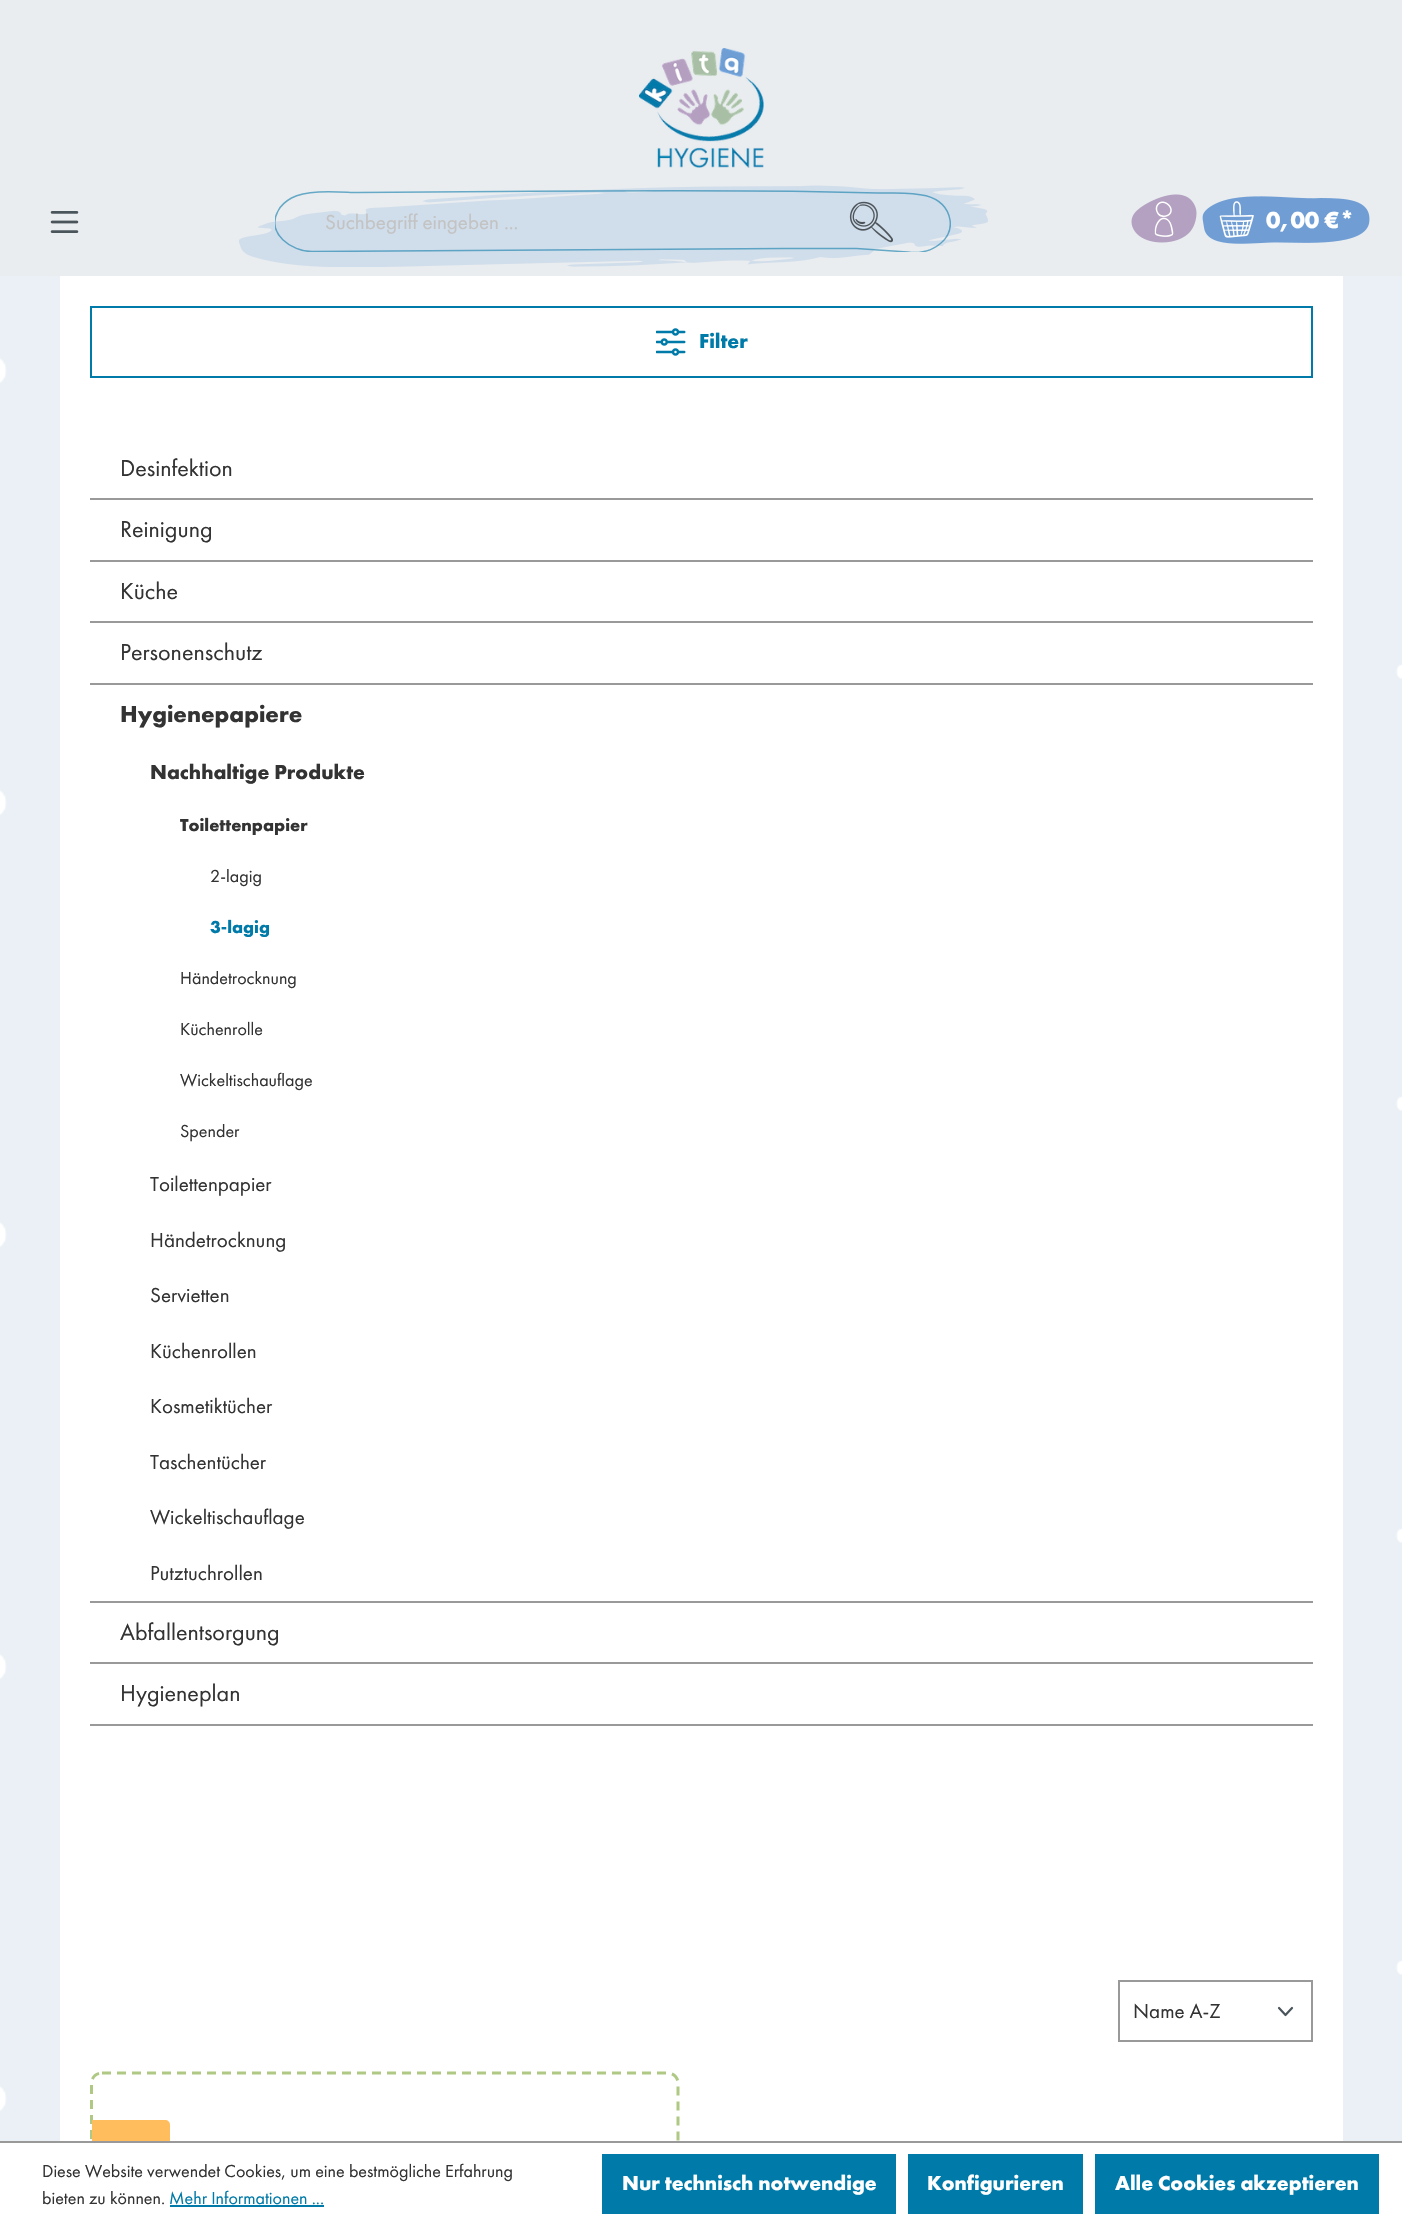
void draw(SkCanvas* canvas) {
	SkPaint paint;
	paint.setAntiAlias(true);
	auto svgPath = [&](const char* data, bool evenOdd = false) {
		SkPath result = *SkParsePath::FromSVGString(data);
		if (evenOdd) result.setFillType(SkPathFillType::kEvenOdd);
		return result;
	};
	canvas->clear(0xffe9edf0);
	canvas->drawImageRect(SkImages::DeferredFromEncodedData(SkData::MakeFromFileName("img1.png")), SkRect::MakeXYWH(639, 48, 125, 120), SkSamplingOptions());
	canvas->drawImageRect(SkImages::DeferredFromEncodedData(SkData::MakeFromFileName("img2.png")), SkRect::MakeXYWH(50, 211, 29, 22), SkSamplingOptions());
	canvas->drawImageRect(SkImages::DeferredFromEncodedData(SkData::MakeFromFileName("img3.png")), SkRect::MakeXYWH(239, 185, 749, 82), SkSamplingOptions());
	canvas->save();
	canvas->clipRect(SkRect::MakeXYWH(275, 189, 676, 63));
	paint.setStroke(true);
	paint.setStrokeWidth(1.5);
	paint.setColor(0x990f7baa);
	canvas->drawPath(svgPath("M312 251.5L783.5 248.5H856.5L907.5 252C912 252.5 917 253 921.5 252C928.5 251 935 248 940.5 243.5C947 238 951.5 229.5 950 220C944.5 187.5 900 193.5 878 193L806 191.5C680.5 190 555 191 429.5 192L357.5 192.5C344 192.5 309 188.5 291.5 198C286 201 281 205 278 211C266 233.5 291.5 251.5 312 251.5Z"), paint);
	canvas->restore();
	SkFont f1(fontMgr->matchFamilyStyle("Futura PT", SkFontStyle::Normal()), 21);
	f1.setSubpixel(true);
	paint.setStroke(false);
	paint.setColor(0xffc3c3c3);
	canvas->drawString("Suchbegriff eingeben ...", 325, 229, f1, paint);
	canvas->drawImageRect(SkImages::DeferredFromEncodedData(SkData::MakeFromFileName("img4.png")), SkRect::MakeXYWH(849, 201, 44, 42), SkSamplingOptions());
	canvas->drawImageRect(SkImages::DeferredFromEncodedData(SkData::MakeFromFileName("img5.png")), SkRect::MakeXYWH(1131, 194, 66, 49), SkSamplingOptions());
	canvas->drawImageRect(SkImages::DeferredFromEncodedData(SkData::MakeFromFileName("img6.png")), SkRect::MakeXYWH(1202, 196, 168, 48), SkSamplingOptions());
	SkFont f2(fontMgr->matchFamilyStyle("Futura PT", SkFontStyle::Bold()), 24);
	f2.setSubpixel(true);
	paint.setColor(0xffffffff);
	canvas->drawString("0,00 €*", 1266, 228, f2, paint);
	canvas->drawImageRect(SkImages::DeferredFromEncodedData(SkData::MakeFromFileName("img7.png")), SkRect::MakeXYWH(0, 276, 1402, 1865), SkSamplingOptions());
	canvas->drawRect(SkRect::MakeXYWH(60, 276, 1283, 1865), paint);
	paint.setStroke(true);
	paint.setStrokeWidth(2);
	paint.setColor(0xff007aa8);
	canvas->drawRect(SkRect::MakeXYWH(91, 307, 1221, 70), paint);
	canvas->drawImageRect(SkImages::DeferredFromEncodedData(SkData::MakeFromFileName("img8.png")), SkRect::MakeXYWH(656, 328, 30, 28), SkSamplingOptions());
	SkFont f3(fontMgr->matchFamilyStyle("Futura PT", SkFontStyle::Bold()), 21);
	f3.setSubpixel(true);
	paint.setStroke(false);
	canvas->drawString("Filter", 699, 348, f3, paint);
	paint.setColor(0xff999999);
	canvas->drawRect(SkRect::MakeXYWH(90, 498, 1223, 2), paint);
	SkFont f4(fontMgr->matchFamilyStyle("Futura PT", SkFontStyle::Normal()), 24);
	f4.setSubpixel(true);
	paint.setColor(0xff333333);
	canvas->drawString("Desinfektion", 120, 476, f4, paint);
	paint.setColor(0xff999999);
	canvas->drawRect(SkRect::MakeXYWH(90, 560, 1223, 2), paint);
	paint.setColor(0xff333333);
	canvas->drawString("Reinigung", 120, 537, f4, paint);
	paint.setColor(0xff999999);
	canvas->drawRect(SkRect::MakeXYWH(90, 621, 1223, 2), paint);
	paint.setColor(0xff333333);
	canvas->drawString("Küche", 120, 599, f4, paint);
	paint.setColor(0xff999999);
	canvas->drawRect(SkRect::MakeXYWH(90, 683, 1223, 2), paint);
	paint.setColor(0xff333333);
	canvas->drawString("Personenschutz", 120, 660, f4, paint);
	paint.setColor(0xff999999);
	canvas->drawRect(SkRect::MakeXYWH(90, 1601, 1223, 2), paint);
	paint.setColor(0xff333333);
	canvas->drawString("Hygienepapiere", 120, 722, f2, paint);
	canvas->drawString("Nachhaltige Produkte", 150, 779, f3, paint);
	SkFont f5(fontMgr->matchFamilyStyle("Futura PT", SkFontStyle::Bold()), 18);
	f5.setSubpixel(true);
	canvas->drawString("Toilettenpapier", 180, 831, f5, paint);
	SkFont f6(fontMgr->matchFamilyStyle("Futura PT", SkFontStyle::Normal()), 18);
	f6.setSubpixel(true);
	canvas->drawString("2-lagig", 210, 882, f6, paint);
	paint.setColor(0xff007aa8);
	canvas->drawString("3-lagig", 210, 933, f5, paint);
	paint.setColor(0xff333333);
	canvas->drawString("Händetrocknung", 180, 984, f6, paint);
	canvas->drawString("Küchenrolle", 180, 1035, f6, paint);
	canvas->drawString("Wickeltischauflage", 180, 1086, f6, paint);
	canvas->drawString("Spender", 180, 1137, f6, paint);
	canvas->drawString("Toilettenpapier", 150, 1191, f1, paint);
	canvas->drawString("Händetrocknung", 150, 1247, f1, paint);
	canvas->drawString("Servietten", 150, 1302, f1, paint);
	canvas->drawString("Küchenrollen", 150, 1358, f1, paint);
	canvas->drawString("Kosmetiktücher", 150, 1413, f1, paint);
	canvas->drawString("Taschentücher", 150, 1469, f1, paint);
	canvas->drawString("Wickeltischauflage", 150, 1524, f1, paint);
	canvas->drawString("Putztuchrollen", 150, 1580, f1, paint);
	paint.setColor(0xff999999);
	canvas->drawRect(SkRect::MakeXYWH(90, 1662, 1223, 2), paint);
	paint.setColor(0xff333333);
	canvas->drawString("Abfallentsorgung", 120, 1640, f4, paint);
	paint.setColor(0xff999999);
	canvas->drawRect(SkRect::MakeXYWH(90, 1724, 1223, 2), paint);
	paint.setColor(0xff333333);
	canvas->drawString("Hygieneplan", 120, 1701, f4, paint);
	paint.setStroke(true);
	paint.setStrokeWidth(2.2);
	paint.setStrokeCap(SkPaint::kRound_Cap);
	paint.setStrokeJoin(SkPaint::kRound_Join);
	paint.setColor(0xff4a545b);
	canvas->drawPath(svgPath("M1279 2008L1285.5 2015L1292 2008"), paint);
	paint.setStrokeWidth(2);
	paint.setStrokeCap(SkPaint::kButt_Cap);
	paint.setStrokeJoin(SkPaint::kMiter_Join);
	paint.setColor(0xff999999);
	canvas->drawRect(SkRect::MakeXYWH(1119, 1981, 193, 60), paint);
	paint.setStroke(false);
	paint.setColor(0xff333333);
	canvas->drawString("Name A-Z", 1133, 2018, f1, paint);
	paint.setColor(0xffffffff);
	canvas->drawRoundRect(SkRect::MakeXYWH(90, 2072, 590, 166), 12, 12, paint);
	paint.setStroke(true);
	paint.setStrokeWidth(3);
	paint.setColor(0xffafc985);
	paint.setPathEffect(SkDashPathEffect::Make({{9, 6}}, 0));
	canvas->drawPath(svgPath("M102 2073H667.5C673.5 2073 678 2077.5 678 2083.5V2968.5C678 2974.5 673.5 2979 667.5 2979H102C96 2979 91.5 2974.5 91.5 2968.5V2083.5C91.5 2077.5 96 2073 102 2073Z"), paint);
	paint.setPathEffect(nullptr);
	paint.setStroke(false);
	paint.setColor(0xffffbd5d);
	canvas->drawPath(svgPath("M92 2120H165C168 2120 170 2122 170 2125V2163C170 2166 168 2168 165 2168H92Z"), paint);
	paint.setColor(0xffffffff);
	canvas->drawRect(SkRect::MakeXYWH(0, 2143, 1402, 83), paint);
	paint.setColor(0xff999999);
	canvas->drawRect(SkRect::MakeXYWH(0, 2141, 1402, 2), paint);
	paint.setColor(0xff333333);
	canvas->drawString("Diese Website verwendet Cookies, um eine bestmögliche Erfahrung", 42, 2177, f6, paint);
	canvas->drawString("bieten zu können.", 42, 2204, f6, paint);
	paint.setColor(0xff007aa8);
	canvas->drawString("Mehr Informationen ...", 169, 2204, f6, paint);
	canvas->drawRect(SkRect::MakeXYWH(170, 2205, 154, 2), paint);
	canvas->drawRect(SkRect::MakeXYWH(602, 2154, 294, 60), paint);
	paint.setColor(0xffffffff);
	canvas->drawString("Nur technisch notwendige", 622, 2190, f3, paint);
	paint.setColor(0xff007aa8);
	canvas->drawRect(SkRect::MakeXYWH(908, 2154, 175, 60), paint);
	paint.setColor(0xffffffff);
	canvas->drawString("Konfigurieren", 927, 2190, f3, paint);
	paint.setColor(0xff007aa8);
	canvas->drawRect(SkRect::MakeXYWH(1095, 2154, 284, 60), paint);
	paint.setColor(0xffffffff);
	canvas->drawString("Alle Cookies akzeptieren", 1115, 2190, f3, paint);
}
